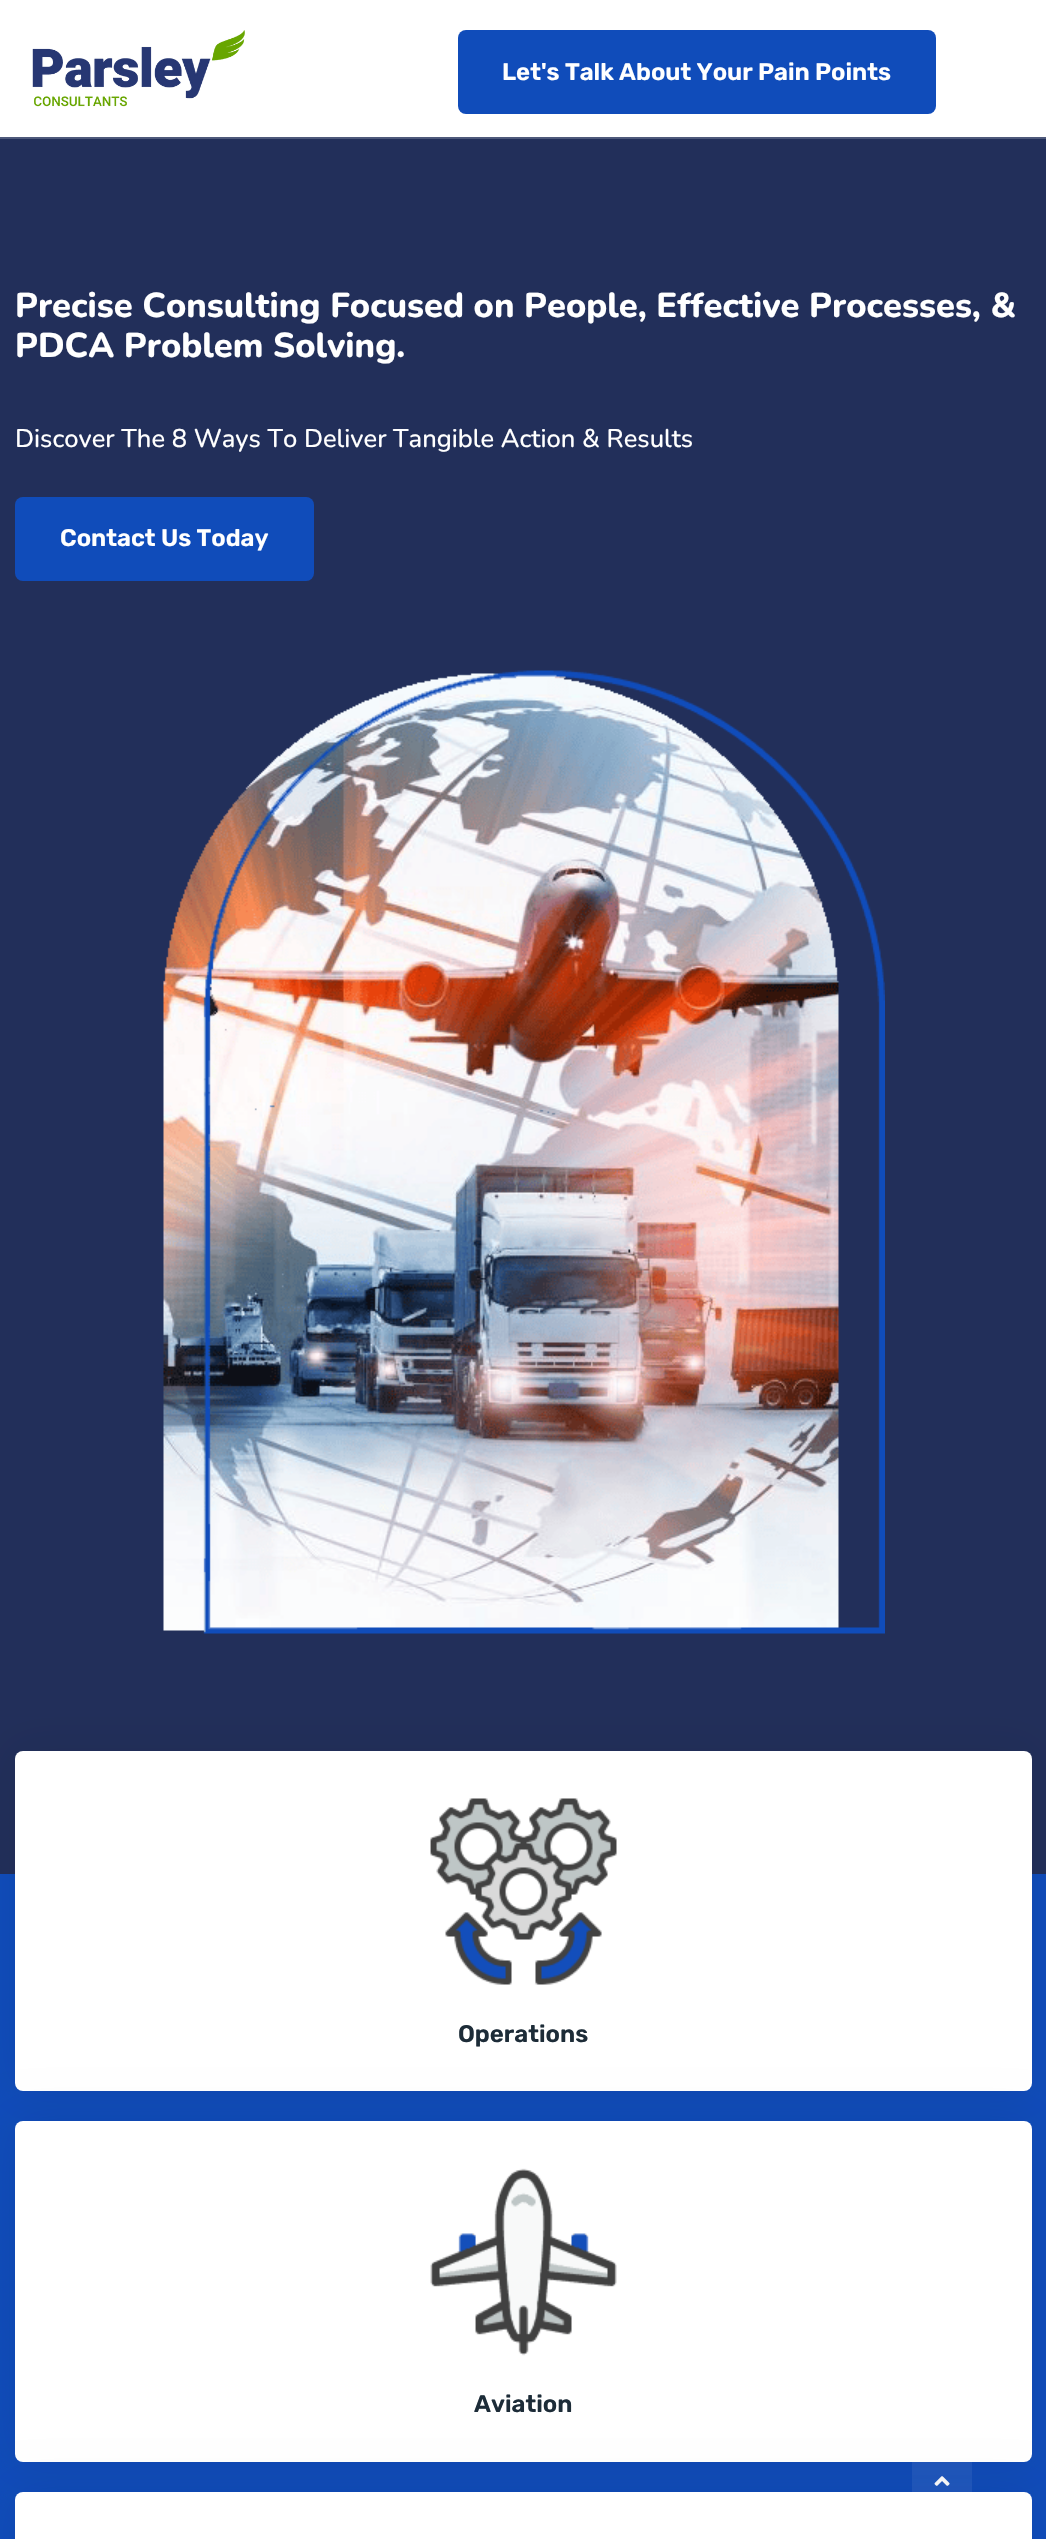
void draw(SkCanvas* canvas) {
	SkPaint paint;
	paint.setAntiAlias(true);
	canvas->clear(0xff222f5a);
	paint.setColor(0xffffffff);
	canvas->drawRect(SkRect::MakeXYWH(0, 0, 1046, 137), paint);
	paint.setColor(0xff4e597b);
	canvas->drawRect(SkRect::MakeXYWH(0, 137, 1046, 2), paint);
	canvas->drawImageRect(SkImages::DeferredFromEncodedData(SkData::MakeFromFileName("img1.png")), SkRect::MakeXYWH(32, 30, 213, 77), SkSamplingOptions());
	paint.setColor(0xff104cba);
	canvas->drawRoundRect(SkRect::MakeXYWH(458, 30, 478, 84), 8, 8, paint);
	SkFont f1(fontMgr->matchFamilyStyle("Rubik", SkFontStyle(600, SkFontStyle::kNormal_Width, SkFontStyle::kUpright_Slant)), 24);
	f1.setSubpixel(true);
	paint.setColor(0xffffffff);
	canvas->drawString("Let's Talk About Your Pain Points", 502, 80, f1, paint);
	SkFont f2(fontMgr->matchFamilyStyle("Nunito", SkFontStyle(800, SkFontStyle::kNormal_Width, SkFontStyle::kUpright_Slant)), 34.5);
	f2.setSubpixel(true);
	canvas->drawString("Precise Consulting Focused on People, Effective Processes, &", 15, 317, f2, paint);
	canvas->drawString("PDCA Problem Solving.", 15, 357, f2, paint);
	SkFont f3(fontMgr->matchFamilyStyle("Nunito", SkFontStyle(500, SkFontStyle::kNormal_Width, SkFontStyle::kUpright_Slant)), 25.5);
	f3.setSubpixel(true);
	canvas->drawString("Discover The 8 Ways To Deliver Tangible Action & Results", 15, 447, f3, paint);
	paint.setColor(0xff104cba);
	canvas->drawRoundRect(SkRect::MakeXYWH(15, 497, 299, 84), 8, 8, paint);
	paint.setColor(0xffffffff);
	canvas->drawString("Contact Us Today", 60, 546, f1, paint);
	canvas->drawImageRect(SkImages::DeferredFromEncodedData(SkData::MakeFromFileName("img2.png")), SkRect::MakeXYWH(163, 670, 722, 964), SkSamplingOptions());
	paint.setColor(0xff104cba);
	canvas->drawRect(SkRect::MakeXYWH(0, 1874, 1046, 665), paint);
	paint.setColor(0x12000000);
	paint.setMaskFilter(SkMaskFilter::MakeBlur(kNormal_SkBlurStyle, 22.5));
	canvas->drawRoundRect(SkRect::MakeXYWH(15, 1751, 1017, 340), 8, 8, paint);
	paint.setMaskFilter(nullptr);
	paint.setColor(0xffffffff);
	canvas->drawRoundRect(SkRect::MakeXYWH(15, 1751, 1017, 340), 8, 8, paint);
	canvas->drawImageRect(SkImages::DeferredFromEncodedData(SkData::MakeFromFileName("img3.png")), SkRect::MakeXYWH(430, 1798, 187, 187), SkSamplingOptions());
	paint.setColor(0xff1d2c38);
	canvas->drawString("Operations", 458, 2042, f1, paint);
	paint.setColor(0xff2058bf);
	canvas->drawRect(SkRect::MakeXYWH(912, 2462, 60, 30), paint);
	canvas->drawImageRect(SkImages::DeferredFromEncodedData(SkData::MakeFromFileName("img5.png")), SkRect::MakeXYWH(934, 2476, 16, 10), SkSamplingOptions());
	paint.setColor(0x12000000);
	paint.setMaskFilter(SkMaskFilter::MakeBlur(kNormal_SkBlurStyle, 22.5));
	canvas->drawRoundRect(SkRect::MakeXYWH(15, 2121, 1017, 341), 8, 8, paint);
	paint.setMaskFilter(nullptr);
	paint.setColor(0xffffffff);
	canvas->drawRoundRect(SkRect::MakeXYWH(15, 2121, 1017, 341), 8, 8, paint);
	canvas->drawImageRect(SkImages::DeferredFromEncodedData(SkData::MakeFromFileName("img4.png")), SkRect::MakeXYWH(430, 2168, 187, 188), SkSamplingOptions());
	paint.setColor(0xff1d2c38);
	canvas->drawString("Aviation", 474, 2412, f1, paint);
	paint.setColor(0x12000000);
	paint.setMaskFilter(SkMaskFilter::MakeBlur(kNormal_SkBlurStyle, 22.5));
	canvas->drawRoundRect(SkRect::MakeXYWH(15, 2492, 1017, 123), 8, 8, paint);
	paint.setMaskFilter(nullptr);
	paint.setColor(0xffffffff);
	canvas->drawRoundRect(SkRect::MakeXYWH(15, 2492, 1017, 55), 8, 8, paint);
}
